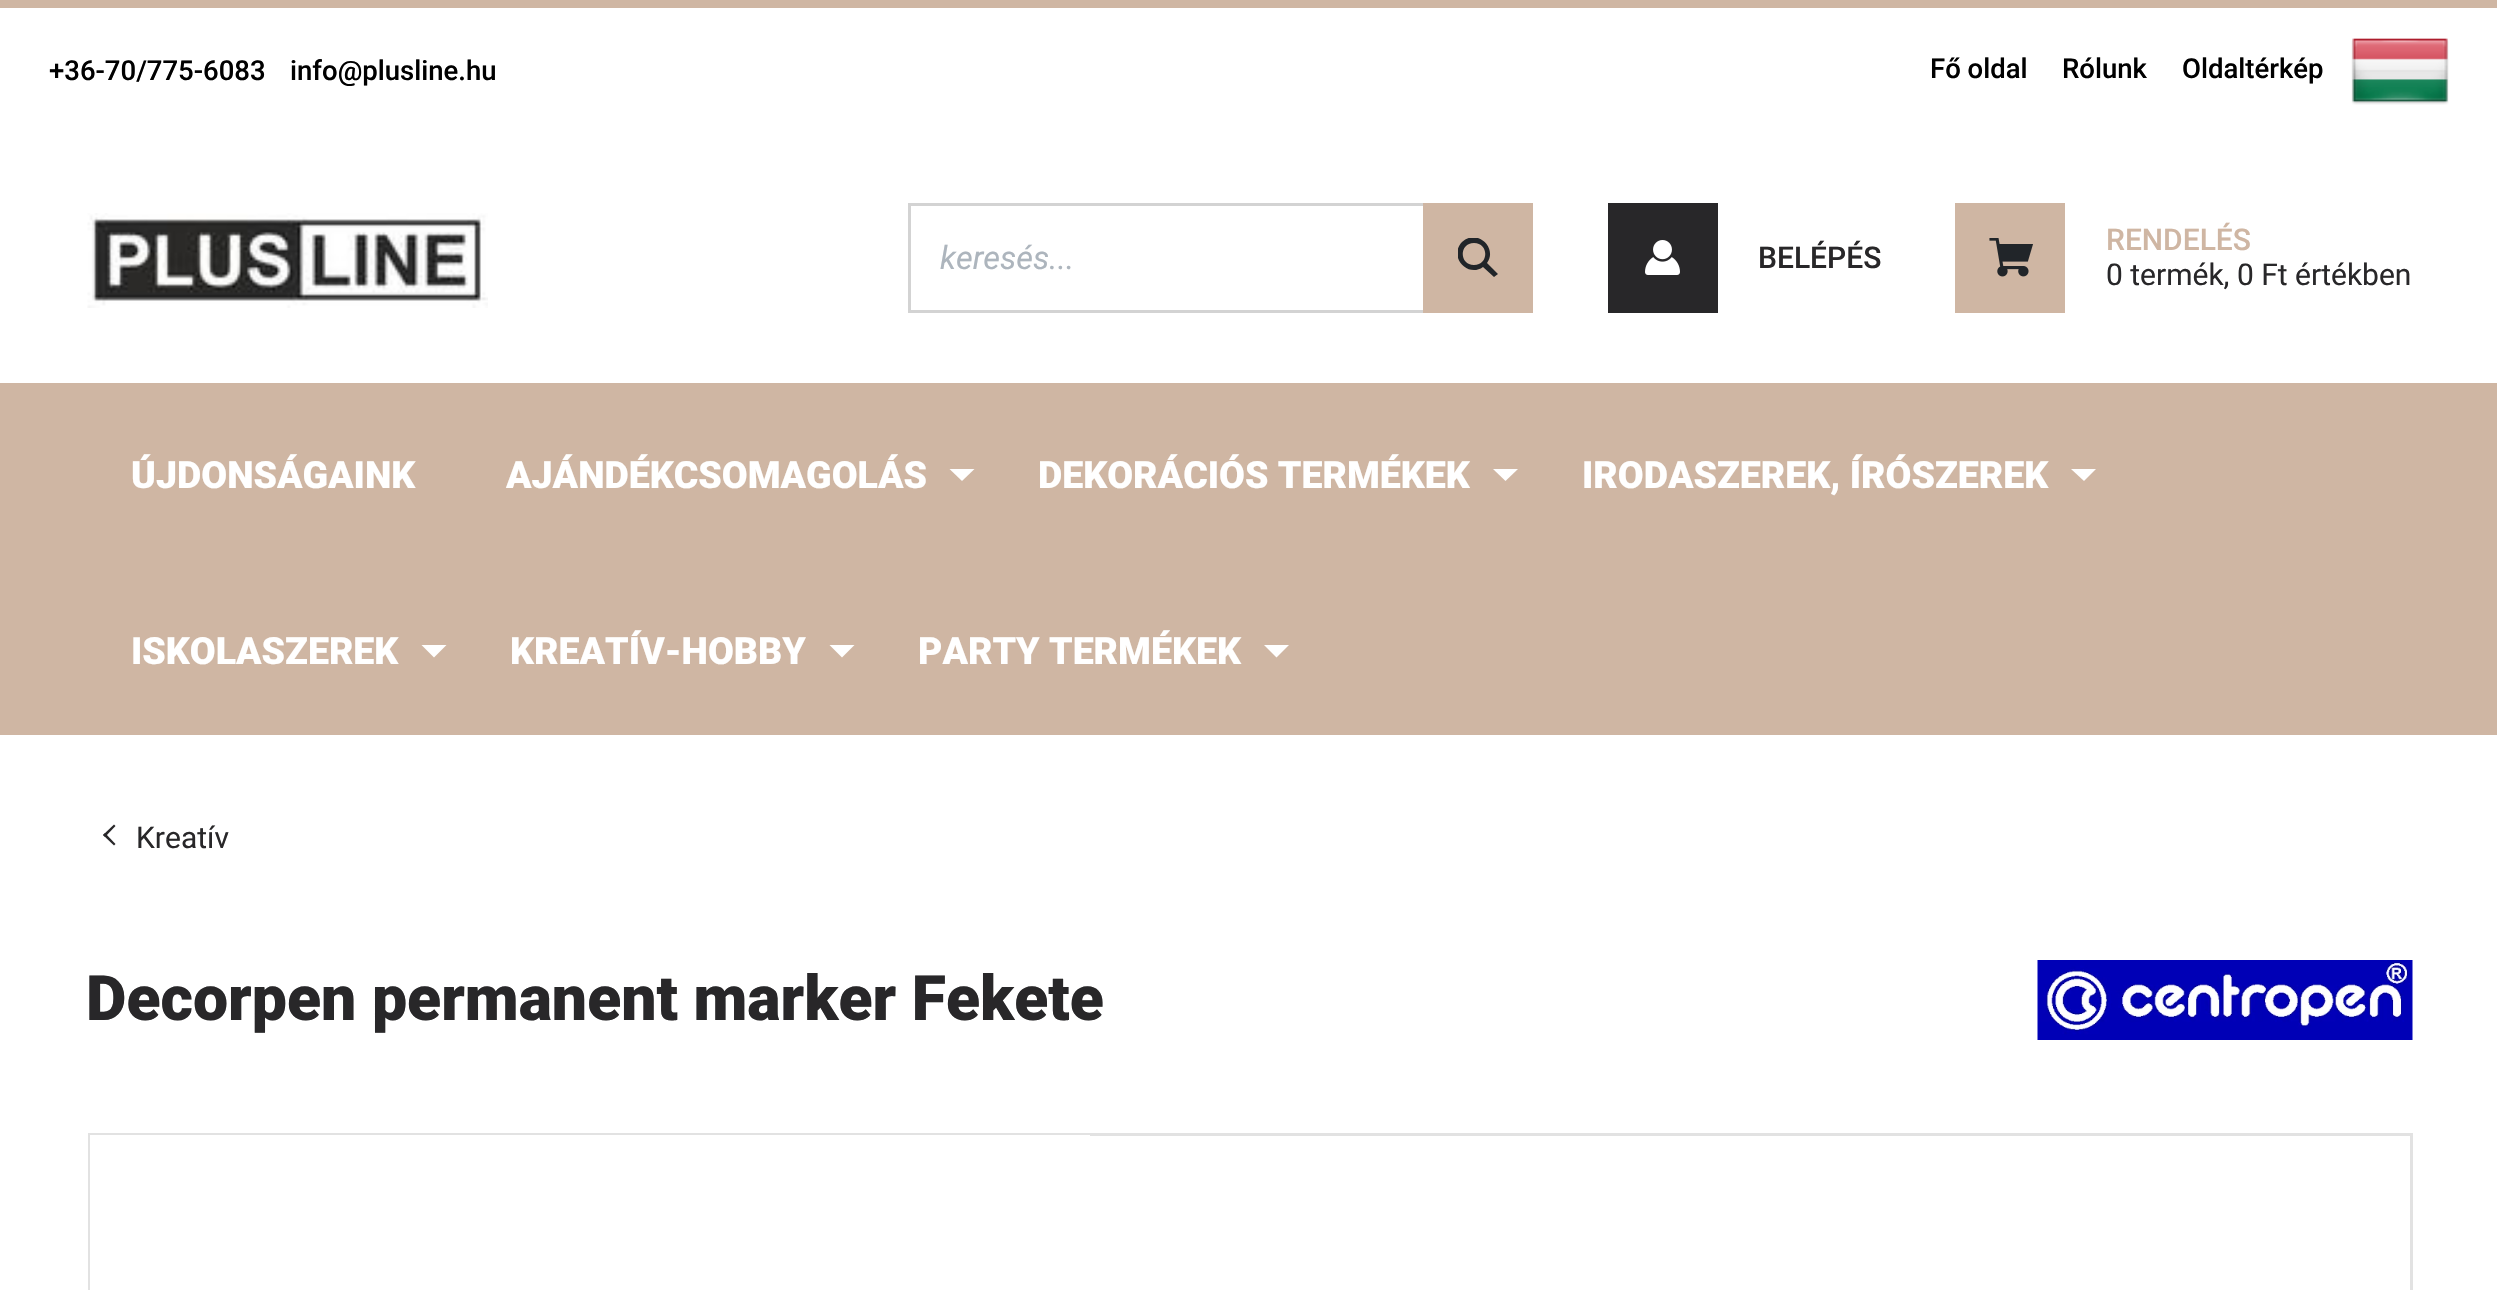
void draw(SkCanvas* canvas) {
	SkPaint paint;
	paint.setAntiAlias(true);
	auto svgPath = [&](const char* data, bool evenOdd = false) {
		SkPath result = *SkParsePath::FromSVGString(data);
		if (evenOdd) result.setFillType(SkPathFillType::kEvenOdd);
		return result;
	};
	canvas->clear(0xffffffff);
	paint.setColor(0xffcfb6a3);
	canvas->drawRect(SkRect::MakeXYWH(0, 0, 2497, 8), paint);
	SkFont f1(fontMgr->matchFamilyStyle("Roboto", SkFontStyle(500, SkFontStyle::kNormal_Width, SkFontStyle::kUpright_Slant)), 27.5);
	f1.setSubpixel(true);
	paint.setColor(0xff000000);
	canvas->drawString("+36-70/775-6083", 49, 80, f1, paint);
	canvas->drawString("info@plusline.hu", 290, 80, f1, paint);
	canvas->drawString("Fő oldal", 1930, 78, f1, paint);
	canvas->drawString("Rólunk", 2062, 78, f1, paint);
	canvas->drawString("Oldaltérkép", 2182, 78, f1, paint);
	canvas->drawImageRect(SkImages::DeferredFromEncodedData(SkData::MakeFromFileName("img1.png")), SkRect::MakeXYWH(2351, 38, 98, 67), SkSamplingOptions());
	canvas->drawImageRect(SkImages::DeferredFromEncodedData(SkData::MakeFromFileName("img2.png")), SkRect::MakeXYWH(87, 213, 401, 95), SkSamplingOptions());
	paint.setStroke(true);
	paint.setStrokeWidth(3);
	paint.setColor(0xffd3d3d3);
	canvas->drawRect(SkRect::MakeXYWH(909.5, 204.5, 622, 107), paint);
	SkFont f2(fontMgr->matchFamilyStyle("Roboto", SkFontStyle::Italic()), 32.5);
	f2.setSubpixel(true);
	paint.setStroke(false);
	paint.setColor(0xffadb5bd);
	canvas->drawString("keresés...", 940, 269, f2, paint);
	paint.setColor(0xffcfb6a3);
	canvas->drawRect(SkRect::MakeXYWH(1423, 203, 110, 110), paint);
	canvas->save();
	canvas->clipRect(SkRect::MakeXYWH(1458, 238, 40, 40));
	paint.setColor(0xff212529);
	canvas->drawPath(svgPath("M1487 263C1498 248 1477 228 1462 242C1448 257 1468 278 1483 267L1494 277L1498 274ZM1474 265C1459 265 1459 243 1474 243C1489 243 1489 265 1474 265Z"), paint);
	canvas->restore();
	paint.setColor(0xff282729);
	canvas->drawRect(SkRect::MakeXYWH(1608, 203, 110, 110), paint);
	canvas->drawImageRect(SkImages::DeferredFromEncodedData(SkData::MakeFromFileName("img3.png")), SkRect::MakeXYWH(1645, 240, 35, 35), SkSamplingOptions());
	SkFont f3(fontMgr->matchFamilyStyle("Roboto", SkFontStyle(500, SkFontStyle::kNormal_Width, SkFontStyle::kUpright_Slant)), 30);
	f3.setSubpixel(true);
	canvas->drawString("BELÉPÉS", 1758, 268, f3, paint);
	paint.setColor(0xffcfb6a3);
	canvas->drawRect(SkRect::MakeXYWH(1955, 203, 110, 110), paint);
	canvas->drawImageRect(SkImages::DeferredFromEncodedData(SkData::MakeFromFileName("img4.png")), SkRect::MakeXYWH(1989, 238, 44, 39), SkSamplingOptions());
	canvas->drawString("RENDELÉS", 2106, 250, f3, paint);
	SkFont f4(fontMgr->matchFamilyStyle("Roboto", SkFontStyle::Normal()), 30);
	f4.setSubpixel(true);
	paint.setColor(0xff282729);
	canvas->drawString("0 termék, 0 Ft értékben", 2106, 285, f4, paint);
	paint.setColor(0xffcfb6a3);
	canvas->drawRect(SkRect::MakeXYWH(0, 383, 2497, 352), paint);
	SkFont f5(fontMgr->matchFamilyStyle("Roboto", SkFontStyle(900, SkFontStyle::kNormal_Width, SkFontStyle::kUpright_Slant)), 37.5);
	f5.setSubpixel(true);
	paint.setColor(0xffffffff);
	canvas->drawString("ÚJDONSÁGAINK", 131, 488, f5, paint);
	canvas->drawString("AJÁNDÉKCSOMAGOLÁS", 506, 488, f5, paint);
	canvas->drawPath(svgPath("M949.5 469H974.5L962 481Z"), paint);
	canvas->drawString("DEKORÁCIÓS TERMÉKEK", 1038, 488, f5, paint);
	canvas->drawPath(svgPath("M1493 469H1518L1505.5 481Z"), paint);
	canvas->drawString("IRODASZEREK, ÍRÓSZEREK", 1582, 488, f5, paint);
	canvas->drawPath(svgPath("M2071 469H2096L2084 481Z"), paint);
	canvas->drawString("ISKOLASZEREK", 131, 664, f5, paint);
	canvas->drawPath(svgPath("M421.5 645H446.5L434 657.5Z"), paint);
	canvas->drawString("KREATÍV-HOBBY", 510, 664, f5, paint);
	canvas->drawPath(svgPath("M829.5 645H854.5L842 657.5Z"), paint);
	canvas->drawString("PARTY TERMÉKEK", 918, 664, f5, paint);
	canvas->drawPath(svgPath("M1264 645H1289L1276.5 657.5Z"), paint);
	paint.setColor(0xff282729);
	canvas->drawPath(svgPath("M115.5 844L114 845.5L103 835L105 833Z"), paint);
	canvas->drawPath(svgPath("M115.5 826L105 837L103 835L114 824.5Z"), paint);
	canvas->drawString("Kreatív", 136, 848, f4, paint);
	SkFont f6(fontMgr->matchFamilyStyle("Roboto", SkFontStyle(900, SkFontStyle::kNormal_Width, SkFontStyle::kUpright_Slant)), 62.5);
	f6.setSubpixel(true);
	canvas->drawString("Decorpen permanent marker Fekete", 86, 1020, f6, paint);
	canvas->drawImageRect(SkImages::DeferredFromEncodedData(SkData::MakeFromFileName("img5.png")), SkRect::MakeXYWH(2037, 960, 376, 80), SkSamplingOptions());
	paint.setStroke(true);
	paint.setColor(0xffe2e2e2);
	canvas->drawRect(SkRect::MakeXYWH(89.5, 1134.5, 2322, 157), paint);
	paint.setStroke(false);
	paint.setColor(0xffffffff);
	canvas->drawRect(SkRect::MakeXYWH(90, 1135, 1000, 155), paint);
}
